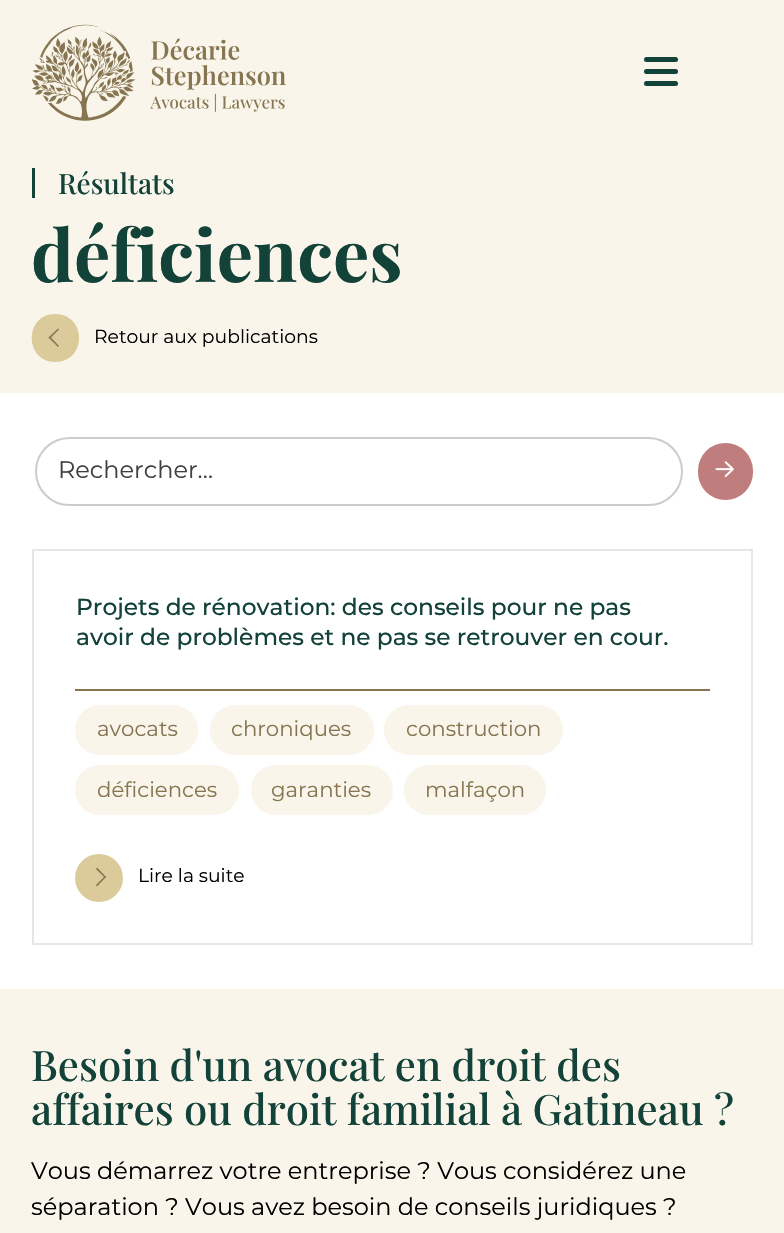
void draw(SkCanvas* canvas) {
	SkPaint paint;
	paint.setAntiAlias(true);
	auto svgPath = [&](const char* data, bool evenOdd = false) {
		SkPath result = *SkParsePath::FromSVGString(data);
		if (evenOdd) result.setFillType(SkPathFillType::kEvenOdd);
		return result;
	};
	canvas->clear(0xffffffff);
	paint.setColor(0xfff9f5ea);
	canvas->drawRect(SkRect::MakeXYWH(0, 0, 784, 393), paint);
	canvas->drawImageRect(SkImages::DeferredFromEncodedData(SkData::MakeFromFileName("img1.png")), SkRect::MakeXYWH(32, 24, 254, 97), SkSamplingOptions());
	paint.setColor(0xff134239);
	canvas->drawRoundRect(SkRect::MakeXYWH(644, 57, 34, 5), 2.5, 2.5, paint);
	canvas->drawRoundRect(SkRect::MakeXYWH(644, 69, 34, 5), 2.5, 2.5, paint);
	canvas->drawRoundRect(SkRect::MakeXYWH(644, 81, 34, 5), 2.5, 2.5, paint);
	canvas->drawRect(SkRect::MakeXYWH(32, 168, 3, 30), paint);
	SkFont f1(fontMgr->matchFamilyStyle("Playfair Display", SkFontStyle(500, SkFontStyle::kNormal_Width, SkFontStyle::kUpright_Slant)), 28);
	f1.setSubpixel(true);
	canvas->drawString("Résultats", 58, 194, f1, paint);
	SkFont f2(fontMgr->matchFamilyStyle("Playfair Display", SkFontStyle::Bold()), 72);
	f2.setSubpixel(true);
	canvas->drawString("déficiences", 31, 282, f2, paint);
	paint.setColor(0xffdbca9a);
	canvas->drawPath(svgPath("M55 362C24 362 24 314 55 314C87 314 87 362 55 362Z"), paint);
	paint.setColor(0xff867550);
	canvas->drawPath(svgPath("M58 347L48.5 337.5L50 336.5L59 346Z"), paint);
	canvas->drawPath(svgPath("M50 338.5L48.5 337.5L58 328.5L59 329.5Z"), paint);
	SkFont f3(fontMgr->matchFamilyStyle("Montserrat", SkFontStyle::Normal()), 18.75);
	f3.setSubpixel(true);
	paint.setColor(0xff000000);
	canvas->drawString("Retour aux publications", 94, 343, f3, paint);
	paint.setStroke(true);
	paint.setStrokeWidth(2);
	paint.setColor(0xffcccccc);
	canvas->drawRoundRect(SkRect::MakeXYWH(36, 438, 646, 67), 33.5, 33.5, paint);
	SkFont f4(fontMgr->matchFamilyStyle("Montserrat", SkFontStyle::Normal()), 24);
	f4.setSubpixel(true);
	paint.setStroke(false);
	paint.setColor(0xff403f41);
	canvas->drawString("Rechercher…", 58, 478, f4, paint);
	paint.setColor(0xffc07d7d);
	canvas->drawRoundRect(SkRect::MakeXYWH(698, 443, 55, 57), 27.5, 27.5, paint);
	canvas->drawImageRect(SkImages::DeferredFromEncodedData(SkData::MakeFromFileName("img2.png")), SkRect::MakeXYWH(715, 461, 19, 16), SkSamplingOptions());
	paint.setStroke(true);
	paint.setColor(0xffe6e6e6);
	canvas->drawRect(SkRect::MakeXYWH(33, 550, 719, 394), paint);
	paint.setStroke(false);
	paint.setColor(0xff867550);
	canvas->drawRect(SkRect::MakeXYWH(75, 689, 635, 2), paint);
	SkFont f5(fontMgr->matchFamilyStyle("Montserrat", SkFontStyle(500, SkFontStyle::kNormal_Width, SkFontStyle::kUpright_Slant)), 23.3);
	f5.setSubpixel(true);
	paint.setColor(0xff134239);
	canvas->drawString("Projets de rénovation: des conseils pour ne pas", 76, 615, f5, paint);
	canvas->drawString("avoir de problèmes et ne pas se retrouver en cour.", 76, 645, f5, paint);
	paint.setColor(0xfff9f5ea);
	canvas->drawRoundRect(SkRect::MakeXYWH(75, 705, 123, 50), 25, 25, paint);
	SkFont f6(fontMgr->matchFamilyStyle("Montserrat", SkFontStyle::Normal()), 21.25);
	f6.setSubpixel(true);
	paint.setColor(0xff867550);
	canvas->drawString("avocats", 97, 736, f6, paint);
	paint.setColor(0xfff9f5ea);
	canvas->drawRoundRect(SkRect::MakeXYWH(210, 705, 164, 50), 25, 25, paint);
	paint.setColor(0xff867550);
	canvas->drawString("chroniques", 231, 736, f6, paint);
	paint.setColor(0xfff9f5ea);
	canvas->drawRoundRect(SkRect::MakeXYWH(384, 705, 179, 50), 25, 25, paint);
	paint.setColor(0xff867550);
	canvas->drawString("construction", 406, 736, f6, paint);
	paint.setColor(0xfff9f5ea);
	canvas->drawRoundRect(SkRect::MakeXYWH(75, 765, 164, 50), 25, 25, paint);
	paint.setColor(0xff867550);
	canvas->drawString("déficiences", 97, 797, f6, paint);
	paint.setColor(0xfff9f5ea);
	canvas->drawRoundRect(SkRect::MakeXYWH(251, 765, 142, 50), 25, 25, paint);
	paint.setColor(0xff867550);
	canvas->drawString("garanties", 271, 797, f6, paint);
	paint.setColor(0xfff9f5ea);
	canvas->drawRoundRect(SkRect::MakeXYWH(404, 765, 142, 50), 25, 25, paint);
	paint.setColor(0xff867550);
	canvas->drawString("malfaçon", 425, 797, f6, paint);
	paint.setColor(0xffdbca9a);
	canvas->drawCircle(99, 878, 24, paint);
	paint.setColor(0xff867550);
	canvas->drawPath(svgPath("M97 867.5L106 877L105 878L96 869Z"), paint);
	canvas->drawPath(svgPath("M105 876L106 877L97 886.5L96 885Z"), paint);
	paint.setColor(0xff000000);
	canvas->drawString("Lire la suite", 138, 882, f3, paint);
	paint.setColor(0xfff9f5ea);
	canvas->drawRect(SkRect::MakeXYWH(0, 989, 784, 244), paint);
	SkFont f7(fontMgr->matchFamilyStyle("Playfair Display", SkFontStyle(500, SkFontStyle::kNormal_Width, SkFontStyle::kUpright_Slant)), 42);
	f7.setSubpixel(true);
	paint.setColor(0xff134239);
	canvas->drawString("Besoin d'un avocat en droit des", 31, 1081, f7, paint);
	canvas->drawString("affaires ou droit familial à Gatineau ?", 31, 1125, f7, paint);
	paint.setColor(0xff000000);
	canvas->drawString("Vous démarrez votre entreprise ? Vous considérez une", 31, 1179, f4, paint);
	canvas->drawString("séparation ? Vous avez besoin de conseils juridiques ?", 31, 1215, f4, paint);
}
